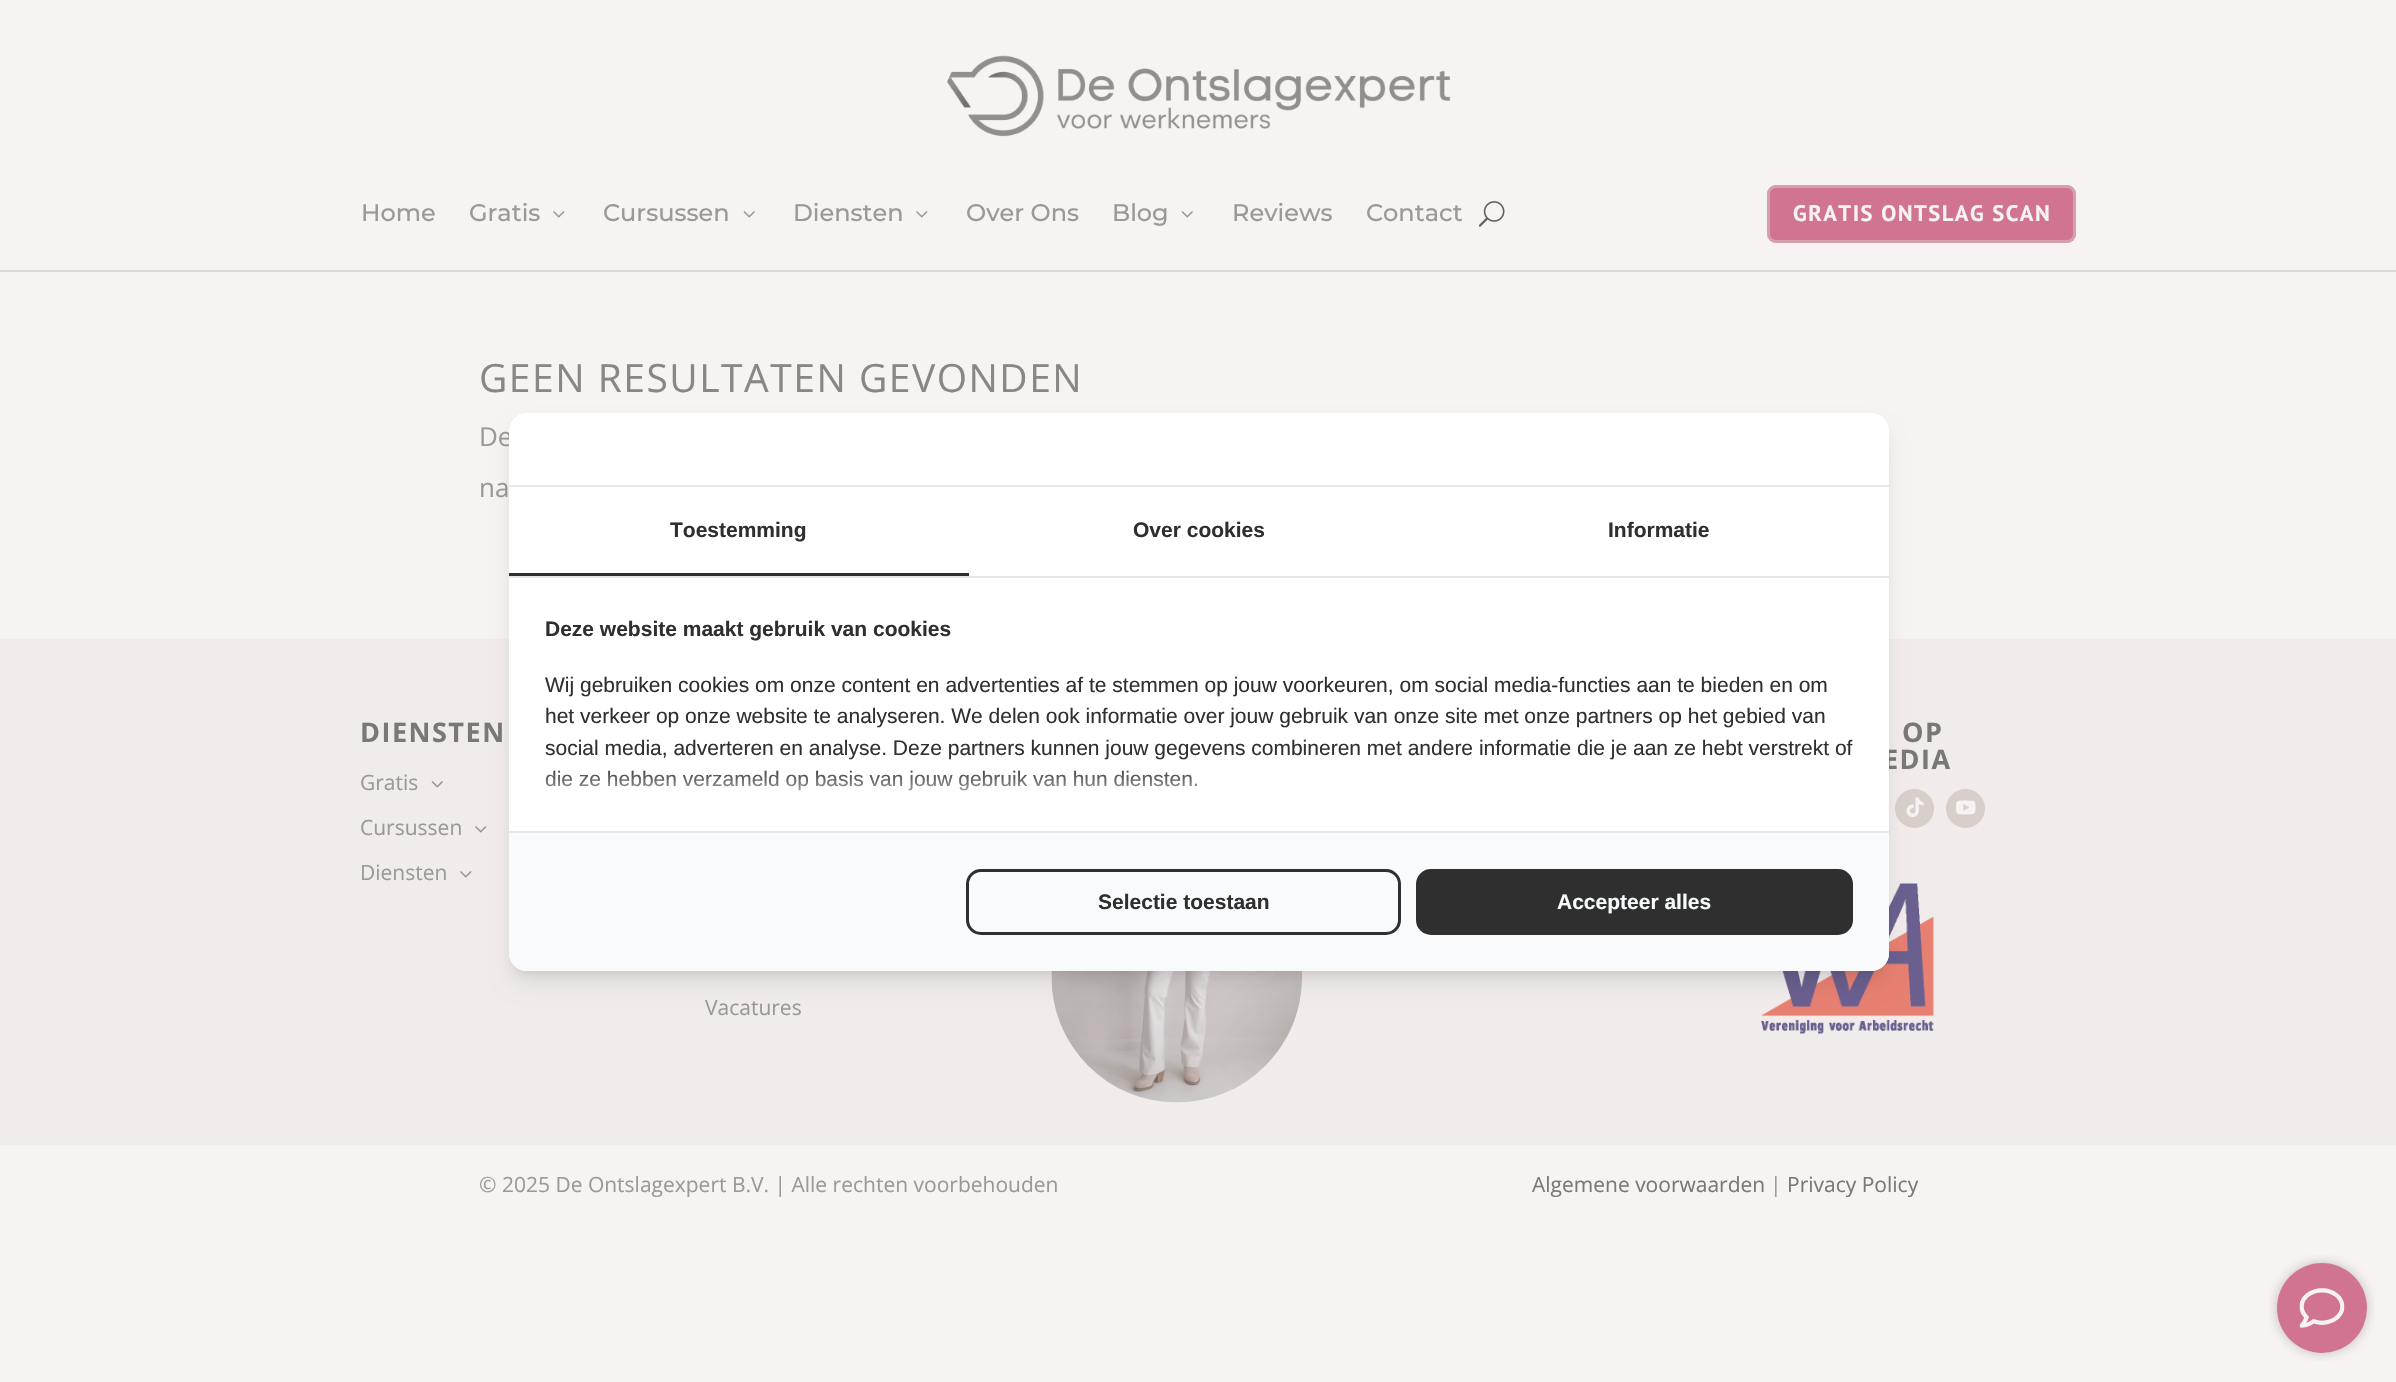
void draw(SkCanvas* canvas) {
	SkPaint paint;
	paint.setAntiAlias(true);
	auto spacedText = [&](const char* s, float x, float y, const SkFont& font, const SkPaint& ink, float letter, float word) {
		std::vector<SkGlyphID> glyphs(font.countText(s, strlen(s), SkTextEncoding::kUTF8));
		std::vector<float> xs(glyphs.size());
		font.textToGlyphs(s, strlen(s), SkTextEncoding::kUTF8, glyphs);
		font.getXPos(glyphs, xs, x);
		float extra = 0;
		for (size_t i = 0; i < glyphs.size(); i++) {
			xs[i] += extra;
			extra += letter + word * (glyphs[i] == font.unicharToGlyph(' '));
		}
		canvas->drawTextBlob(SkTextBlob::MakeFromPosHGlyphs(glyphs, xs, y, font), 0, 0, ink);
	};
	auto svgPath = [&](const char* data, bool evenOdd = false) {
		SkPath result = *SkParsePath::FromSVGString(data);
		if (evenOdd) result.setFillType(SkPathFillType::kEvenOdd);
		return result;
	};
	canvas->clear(0xfff7f3f3);
	canvas->drawImageRect(SkImages::DeferredFromEncodedData(SkData::MakeFromFileName("img1.png")), SkRect::MakeXYWH(946, 55, 505, 82), SkSamplingOptions());
	paint.setColor(0xffddd9d9);
	canvas->drawRect(SkRect::MakeXYWH(0, 270, 2396, 2), paint);
	SkFont f1(fontMgr->matchFamilyStyle("Montserrat", SkFontStyle(500, SkFontStyle::kNormal_Width, SkFontStyle::kUpright_Slant)), 24);
	f1.setSubpixel(true);
	paint.setColor(0xff9b9898);
	canvas->drawString("Home", 361, 221, f1, paint);
	canvas->drawString("Gratis", 469, 221, f1, paint);
	canvas->drawImageRect(SkImages::DeferredFromEncodedData(SkData::MakeFromFileName("img2.png")), SkRect::MakeXYWH(553, 211, 12, 7), SkSamplingOptions());
	canvas->drawString("Cursussen", 603, 221, f1, paint);
	canvas->drawImageRect(SkImages::DeferredFromEncodedData(SkData::MakeFromFileName("img3.png")), SkRect::MakeXYWH(743, 211, 12, 7), SkSamplingOptions());
	canvas->drawString("Diensten", 793, 221, f1, paint);
	canvas->drawImageRect(SkImages::DeferredFromEncodedData(SkData::MakeFromFileName("img2.png")), SkRect::MakeXYWH(916, 211, 12, 7), SkSamplingOptions());
	canvas->drawString("Over Ons", 966, 221, f1, paint);
	canvas->drawString("Blog", 1112, 221, f1, paint);
	canvas->drawImageRect(SkImages::DeferredFromEncodedData(SkData::MakeFromFileName("img3.png")), SkRect::MakeXYWH(1181, 211, 12, 7), SkSamplingOptions());
	canvas->drawString("Reviews", 1232, 221, f1, paint);
	canvas->drawString("Contact", 1366, 221, f1, paint);
	canvas->drawImageRect(SkImages::DeferredFromEncodedData(SkData::MakeFromFileName("img4.png")), SkRect::MakeXYWH(1478, 201, 27, 26), SkSamplingOptions());
	paint.setColor(0xffd1748f);
	canvas->drawRoundRect(SkRect::MakeXYWH(1767, 185, 309, 58), 9, 9, paint);
	paint.setStroke(true);
	paint.setStrokeWidth(3);
	paint.setColor(0x78d8cfcb);
	canvas->drawRoundRect(SkRect::MakeXYWH(1768.5, 186.5, 306, 55), 7.5, 7.5, paint);
	SkFont f2(fontMgr->matchFamilyStyle("PT Sans", SkFontStyle::Bold()), 22.5);
	f2.setSubpixel(true);
	paint.setStroke(false);
	paint.setColor(0xfff7f3f3);
	spacedText("GRATIS ONTSLAG SCAN", 1793, 221, f2, paint, 1.5, 0);
	SkFont f3(fontMgr->matchFamilyStyle("Open Sans", SkFontStyle::Normal()), 39);
	f3.setSubpixel(true);
	paint.setColor(0xff8a8686);
	spacedText("GEEN RESULTATEN GEVONDEN", 479, 392, f3, paint, 1.5, 0);
	SkFont f4(fontMgr->matchFamilyStyle("Open Sans", SkFontStyle::Normal()), 26);
	f4.setSubpixel(true);
	paint.setColor(0xff9b9898);
	canvas->drawString("De", 479, 446, f4, paint);
	canvas->drawString("na", 479, 497, f4, paint);
	paint.setColor(0xfff1eceb);
	canvas->drawRect(SkRect::MakeXYWH(0, 639, 2396, 506), paint);
	SkFont f5(fontMgr->matchFamilyStyle("Open Sans", SkFontStyle::Bold()), 27);
	f5.setSubpixel(true);
	paint.setColor(0xff7a7777);
	spacedText("DIENSTEN", 360, 742, f5, paint, 1.5, 0);
	SkFont f6(fontMgr->matchFamilyStyle("Open Sans", SkFontStyle::Normal()), 21);
	f6.setSubpixel(true);
	paint.setColor(0xff9b9898);
	canvas->drawString("Gratis", 360, 790, f6, paint);
	canvas->drawImageRect(SkImages::DeferredFromEncodedData(SkData::MakeFromFileName("img5.png")), SkRect::MakeXYWH(431, 781, 12, 7), SkSamplingOptions());
	canvas->drawString("Cursussen", 360, 835, f6, paint);
	canvas->drawImageRect(SkImages::DeferredFromEncodedData(SkData::MakeFromFileName("img6.png")), SkRect::MakeXYWH(475, 826, 12, 7), SkSamplingOptions());
	canvas->drawString("Diensten", 360, 880, f6, paint);
	canvas->drawImageRect(SkImages::DeferredFromEncodedData(SkData::MakeFromFileName("img6.png")), SkRect::MakeXYWH(460, 871, 12, 7), SkSamplingOptions());
	paint.setColor(0xff7a7777);
	spacedText("OP", 1902, 742, f5, paint, 1.5, 0);
	spacedText("EDIA", 1883, 769, f5, paint, 1.5, 0);
	paint.setColor(0xffd8cfcb);
	canvas->drawCircle(1914.5, 808.5, 19.5, paint);
	canvas->drawImageRect(SkImages::DeferredFromEncodedData(SkData::MakeFromFileName("img7.png")), SkRect::MakeXYWH(1906, 797, 18, 20), SkSamplingOptions());
	canvas->drawCircle(1965.5, 808.5, 19.5, paint);
	canvas->drawImageRect(SkImages::DeferredFromEncodedData(SkData::MakeFromFileName("img8.png")), SkRect::MakeXYWH(1956, 800, 20, 15), SkSamplingOptions());
	canvas->drawImageRect(SkImages::DeferredFromEncodedData(SkData::MakeFromFileName("img9.png")), SkRect::MakeXYWH(1761, 883, 173, 151), SkSamplingOptions());
	paint.setColor(0xff9b9898);
	canvas->drawString("Vacatures", 705, 1015, f6, paint);
	canvas->drawImageRect(SkImages::DeferredFromEncodedData(SkData::MakeFromFileName("img10.png")), SkRect::MakeXYWH(1051, 971, 251, 132), SkSamplingOptions());
	canvas->drawString("© 2025 De Ontslagexpert B.V. | Alle rechten voorbehouden", 479, 1192, f6, paint);
	paint.setColor(0xff7a7777);
	canvas->drawString("Algemene voorwaarden", 1532, 1192, f6, paint);
	paint.setColor(0xff9b9898);
	canvas->drawString("|", 1770, 1192, f6, paint);
	paint.setColor(0xff7a7777);
	canvas->drawString("Privacy Policy", 1787, 1192, f6, paint);
	paint.setColor(0x1a000000);
	paint.setMaskFilter(SkMaskFilter::MakeBlur(kNormal_SkBlurStyle, 4.5));
	canvas->drawRoundRect(SkRect::MakeXYWH(515, 425, 1368, 546), 12, 12, paint);
	paint.setMaskFilter(nullptr);
	paint.setMaskFilter(SkMaskFilter::MakeBlur(kNormal_SkBlurStyle, 11));
	canvas->drawRoundRect(SkRect::MakeXYWH(513, 432, 1371, 549), 14, 14, paint);
	paint.setMaskFilter(nullptr);
	paint.setColor(0xffffffff);
	canvas->drawRoundRect(SkRect::MakeXYWH(509, 413, 1380, 558), 18, 18, paint);
	paint.setColor(0xffe5e7eb);
	canvas->drawRect(SkRect::MakeXYWH(509, 485, 1380, 2), paint);
	canvas->drawRect(SkRect::MakeXYWH(509, 576, 1380, 2), paint);
	paint.setColor(0xff2f2f2f);
	canvas->drawRect(SkRect::MakeXYWH(509, 573, 460, 3), paint);
	SkFont f7(fontMgr->matchFamilyStyle("Liberation Sans", SkFontStyle::Bold()), 21);
	f7.setSubpixel(true);
	canvas->drawString("Toestemming", 670, 537, f7, paint);
	canvas->drawString("Over cookies", 1133, 537, f7, paint);
	canvas->drawString("Informatie", 1608, 537, f7, paint);
	canvas->drawString("Deze website maakt gebruik van cookies", 545, 636, f7, paint);
	SkFont f8(fontMgr->matchFamilyStyle("Liberation Sans", SkFontStyle::Normal()), 21);
	f8.setSubpixel(true);
	canvas->drawString("Wij gebruiken cookies om onze content en advertenties af te stemmen op jouw voorkeuren, om social media-functies aan te bieden en om", 545, 692, f8, paint);
	canvas->drawString("het verkeer op onze website te analyseren. We delen ook informatie over jouw gebruik van onze site met onze partners op het gebied van", 545, 723, f8, paint);
	canvas->drawString("social media, adverteren en analyse. Deze partners kunnen jouw gegevens combineren met andere informatie die je aan ze hebt verstrekt of", 545, 755, f8, paint);
	canvas->drawString("die ze hebben verzameld op basis van jouw gebruik van hun diensten.", 545, 786, f8, paint);
	canvas->save();
	canvas->clipPath(svgPath("M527 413H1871C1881 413 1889 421 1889 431V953C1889 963 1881 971 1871 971H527C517 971 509 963 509 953V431C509 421 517 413 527 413Z"), true);
	paint.setColor(0xffffffff);
	paint.setMaskFilter(SkMaskFilter::MakeBlur(kNormal_SkBlurStyle, 15));
	canvas->drawRect(SkRect::MakeXYWH(497, 789, 1404, 164), paint);
	paint.setMaskFilter(nullptr);
	canvas->restore();
	paint.setColor(0xfff9fafb);
	canvas->drawPath(svgPath("M509 831H1889V953C1889 963 1881 971 1871 971H527C517 971 509 963 509 953Z"), paint);
	paint.setColor(0xffe5e7eb);
	canvas->drawRect(SkRect::MakeXYWH(509, 831, 1380, 2), paint);
	paint.setStroke(true);
	paint.setColor(0xff2f2f2f);
	canvas->drawRoundRect(SkRect::MakeXYWH(967.5, 870.5, 432, 63), 13.5, 13.5, paint);
	paint.setStroke(false);
	canvas->drawString("Selectie toestaan", 1098, 909, f7, paint);
	canvas->drawRoundRect(SkRect::MakeXYWH(1417.5, 870.5, 434, 63), 13.5, 13.5, paint);
	paint.setStroke(true);
	canvas->drawRoundRect(SkRect::MakeXYWH(1417.5, 870.5, 434, 63), 13.5, 13.5, paint);
	paint.setStroke(false);
	paint.setColor(0xfff8fbfc);
	canvas->drawString("Accepteer alles", 1557, 909, f7, paint);
	canvas->drawImageRect(SkImages::DeferredFromEncodedData(SkData::MakeFromFileName("img11.png")), SkRect::MakeXYWH(2269, 1255, 106, 106), SkSamplingOptions());
}
